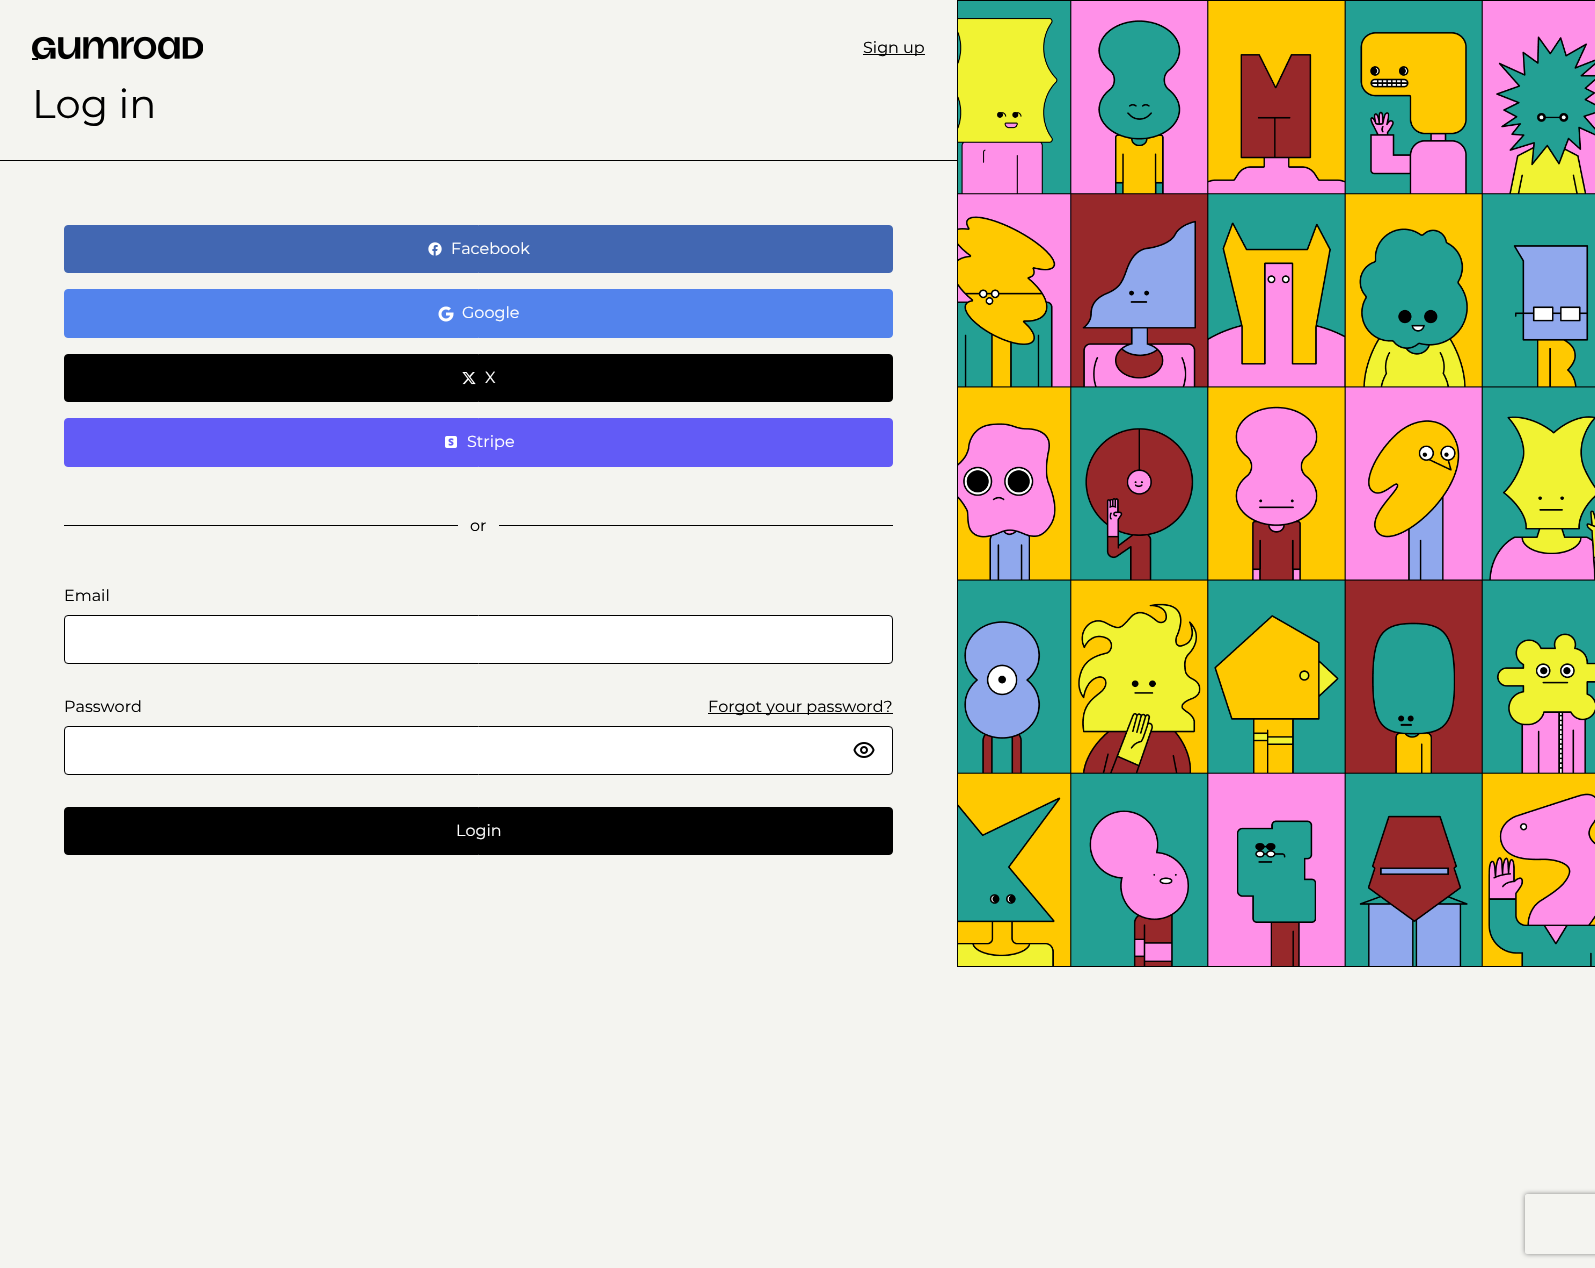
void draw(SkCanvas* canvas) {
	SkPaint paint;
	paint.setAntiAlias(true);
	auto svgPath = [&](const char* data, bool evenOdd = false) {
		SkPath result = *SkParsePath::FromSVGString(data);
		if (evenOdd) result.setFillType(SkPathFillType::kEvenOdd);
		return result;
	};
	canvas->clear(0xfff4f4f0);
	paint.setColor(0xff000000);
	canvas->drawRect(SkRect::MakeXYWH(0, 160, 957, 1), paint);
	canvas->drawImageRect(SkImages::DeferredFromEncodedData(SkData::MakeFromFileName("img1.png")), SkRect::MakeXYWH(32, 36, 171, 24), SkSamplingOptions());
	canvas->drawRect(SkRect::MakeXYWH(32, 58, 6, 2), paint);
	canvas->drawRect(SkRect::MakeXYWH(863, 54, 62, 1), paint);
	SkFont f1(fontMgr->matchFamilyStyle("Montserrat", SkFontStyle::Normal()), 16);
	f1.setSubpixel(true);
	canvas->drawString("Sign up", 863, 53, f1, paint);
	SkFont f2(fontMgr->matchFamilyStyle("Montserrat", SkFontStyle::Normal()), 40);
	f2.setSubpixel(true);
	canvas->drawString("Log in", 32, 118, f2, paint);
	paint.setColor(0xff4267b2);
	canvas->drawRoundRect(SkRect::MakeXYWH(64.5, 225.5, 828, 47), 3.5, 3.5, paint);
	paint.setStroke(true);
	paint.setStrokeWidth(1);
	canvas->drawRoundRect(SkRect::MakeXYWH(64.5, 225.5, 828, 47), 3.5, 3.5, paint);
	canvas->drawImageRect(SkImages::DeferredFromEncodedData(SkData::MakeFromFileName("img2.png")), SkRect::MakeXYWH(428, 242, 14, 14), SkSamplingOptions());
	paint.setStroke(false);
	paint.setColor(0xffffffff);
	canvas->drawString("Facebook", 451, 254, f1, paint);
	paint.setColor(0xff5383ec);
	canvas->drawRoundRect(SkRect::MakeXYWH(64.5, 289.5, 828, 48), 3.5, 3.5, paint);
	paint.setStroke(true);
	canvas->drawRoundRect(SkRect::MakeXYWH(64.5, 289.5, 828, 48), 3.5, 3.5, paint);
	canvas->drawImageRect(SkImages::DeferredFromEncodedData(SkData::MakeFromFileName("img3.png")), SkRect::MakeXYWH(438, 306, 16, 16), SkSamplingOptions());
	paint.setStroke(false);
	paint.setColor(0xffffffff);
	canvas->drawString("Google", 462, 318, f1, paint);
	paint.setColor(0xff000000);
	canvas->drawRoundRect(SkRect::MakeXYWH(64.5, 354.5, 828, 47), 3.5, 3.5, paint);
	paint.setStroke(true);
	canvas->drawRoundRect(SkRect::MakeXYWH(64.5, 354.5, 828, 47), 3.5, 3.5, paint);
	canvas->drawImageRect(SkImages::DeferredFromEncodedData(SkData::MakeFromFileName("img4.png")), SkRect::MakeXYWH(462, 372, 14, 13), SkSamplingOptions());
	paint.setStroke(false);
	paint.setColor(0xffffffff);
	canvas->drawString("X", 485, 383, f1, paint);
	paint.setColor(0xff625bf6);
	canvas->drawRoundRect(SkRect::MakeXYWH(64.5, 418.5, 828, 48), 3.5, 3.5, paint);
	paint.setStroke(true);
	canvas->drawRoundRect(SkRect::MakeXYWH(64.5, 418.5, 828, 48), 3.5, 3.5, paint);
	canvas->drawImageRect(SkImages::DeferredFromEncodedData(SkData::MakeFromFileName("img5.png")), SkRect::MakeXYWH(445, 436, 12, 12), SkSamplingOptions());
	paint.setStroke(false);
	paint.setColor(0xffffffff);
	canvas->drawString("Stripe", 467, 447, f1, paint);
	paint.setColor(0xff000000);
	canvas->drawRect(SkRect::MakeXYWH(64, 525, 394, 1), paint);
	canvas->drawString("or", 470, 531, f1, paint);
	canvas->drawRect(SkRect::MakeXYWH(499, 525, 394, 1), paint);
	canvas->drawString("Email", 64, 601, f1, paint);
	paint.setColor(0xffffffff);
	canvas->drawRoundRect(SkRect::MakeXYWH(64.5, 615.5, 828, 48), 3.5, 3.5, paint);
	paint.setStroke(true);
	paint.setColor(0xff000000);
	canvas->drawRoundRect(SkRect::MakeXYWH(64.5, 615.5, 828, 48), 3.5, 3.5, paint);
	paint.setStroke(false);
	canvas->drawString("Password", 64, 712, f1, paint);
	canvas->drawRect(SkRect::MakeXYWH(708, 713, 185, 1), paint);
	canvas->drawString("Forgot your password?", 708, 712, f1, paint);
	paint.setColor(0xffffffff);
	canvas->drawRoundRect(SkRect::MakeXYWH(64.5, 726.5, 828, 48), 3.5, 3.5, paint);
	paint.setStroke(true);
	paint.setColor(0xff000000);
	canvas->drawRoundRect(SkRect::MakeXYWH(64.5, 726.5, 828, 48), 3.5, 3.5, paint);
	canvas->drawImageRect(SkImages::DeferredFromEncodedData(SkData::MakeFromFileName("img6.png")), SkRect::MakeXYWH(853, 742, 22, 16), SkSamplingOptions());
	paint.setStroke(false);
	canvas->drawRoundRect(SkRect::MakeXYWH(64.5, 807.5, 828, 47), 3.5, 3.5, paint);
	paint.setStroke(true);
	canvas->drawRoundRect(SkRect::MakeXYWH(64.5, 807.5, 828, 47), 3.5, 3.5, paint);
	paint.setStroke(false);
	paint.setColor(0xffffffff);
	canvas->drawString("Login", 456, 836, f1, paint);
	canvas->save();
	canvas->clipPath(svgPath("M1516 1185H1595V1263H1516ZM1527 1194H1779C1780 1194 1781 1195 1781 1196V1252C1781 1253 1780 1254 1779 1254H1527C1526 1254 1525 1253 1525 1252V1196C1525 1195 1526 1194 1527 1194Z", true), true);
	paint.setColor(0xff808080);
	paint.setMaskFilter(SkMaskFilter::MakeBlur(kNormal_SkBlurStyle, 2.5));
	canvas->drawRoundRect(SkRect::MakeXYWH(1525, 1194, 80, 60), 2, 2, paint);
	paint.setMaskFilter(nullptr);
	canvas->restore();
	paint.setColor(0xff000000);
	canvas->drawRect(SkRect::MakeXYWH(957, 0, 1, 967), paint);
	canvas->drawImageRect(SkImages::DeferredFromEncodedData(SkData::MakeFromFileName("img7.png")), SkRect::MakeXYWH(958, 0, 637, 967), SkSamplingOptions());
}
